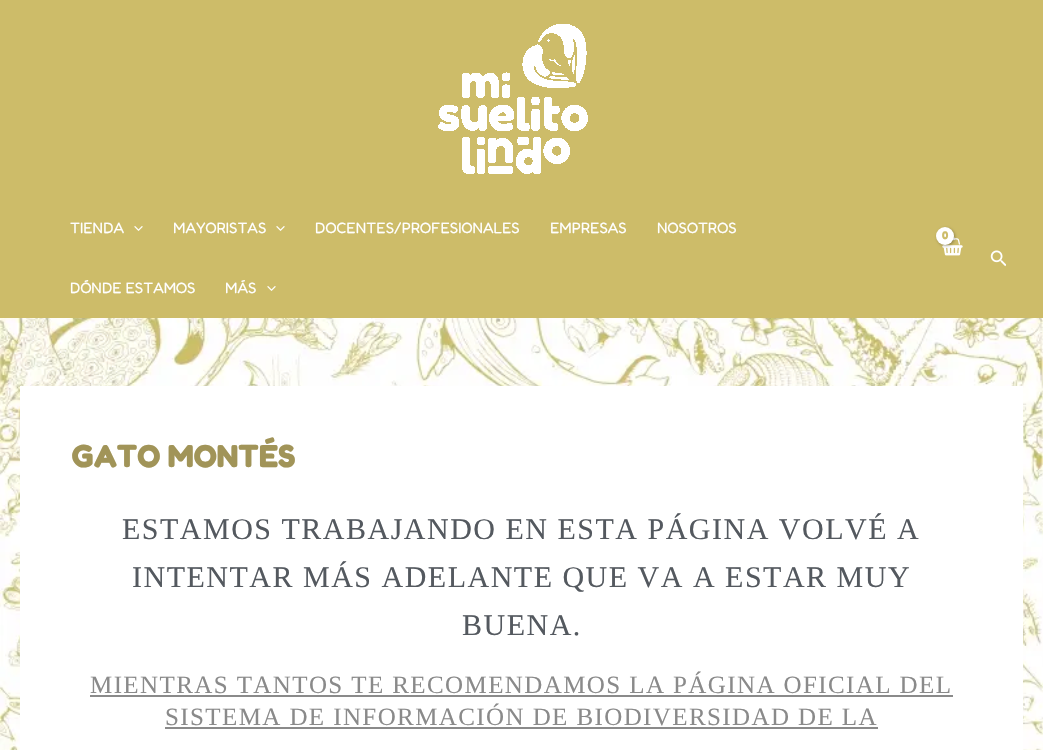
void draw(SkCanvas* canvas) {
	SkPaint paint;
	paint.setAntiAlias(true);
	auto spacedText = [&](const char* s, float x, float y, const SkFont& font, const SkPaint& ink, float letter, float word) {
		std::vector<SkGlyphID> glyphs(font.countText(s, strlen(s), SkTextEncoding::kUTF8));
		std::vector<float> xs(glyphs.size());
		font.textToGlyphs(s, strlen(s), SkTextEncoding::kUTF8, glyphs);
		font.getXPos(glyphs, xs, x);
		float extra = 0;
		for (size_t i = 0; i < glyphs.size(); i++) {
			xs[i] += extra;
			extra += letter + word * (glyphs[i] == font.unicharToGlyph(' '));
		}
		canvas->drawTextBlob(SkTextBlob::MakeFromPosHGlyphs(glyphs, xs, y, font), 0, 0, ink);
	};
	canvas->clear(0xffffffff);
	canvas->drawImageRect(SkImages::DeferredFromEncodedData(SkData::MakeFromFileName("img1.png")), SkRect::MakeXYWH(0, 318, 1043, 432), SkSamplingOptions());
	paint.setColor(0xffcdbc69);
	canvas->drawRect(SkRect::MakeXYWH(0, 0, 1043, 318), paint);
	canvas->drawImageRect(SkImages::DeferredFromEncodedData(SkData::MakeFromFileName("img2.png")), SkRect::MakeXYWH(438, 24, 150, 150), SkSamplingOptions());
	SkFont f1(fontMgr->matchFamilyStyle("Fredoka", SkFontStyle::Normal()), 15);
	f1.setSubpixel(true);
	paint.setColor(0xffffffff);
	canvas->drawString("TIENDA", 70, 233, f1, paint);
	canvas->drawImageRect(SkImages::DeferredFromEncodedData(SkData::MakeFromFileName("img3.png")), SkRect::MakeXYWH(134, 226, 9, 5), SkSamplingOptions());
	canvas->drawString("MAYORISTAS", 173, 233, f1, paint);
	canvas->drawImageRect(SkImages::DeferredFromEncodedData(SkData::MakeFromFileName("img3.png")), SkRect::MakeXYWH(276, 226, 9, 5), SkSamplingOptions());
	canvas->drawString("DOCENTES/PROFESIONALES", 315, 233, f1, paint);
	canvas->drawString("EMPRESAS", 550, 233, f1, paint);
	canvas->drawString("NOSOTROS", 657, 233, f1, paint);
	canvas->drawString("DÓNDE ESTAMOS", 70, 293, f1, paint);
	canvas->drawString("MÁS", 225, 293, f1, paint);
	canvas->drawImageRect(SkImages::DeferredFromEncodedData(SkData::MakeFromFileName("img3.png")), SkRect::MakeXYWH(267, 286, 9, 5), SkSamplingOptions());
	canvas->drawImageRect(SkImages::DeferredFromEncodedData(SkData::MakeFromFileName("img4.png")), SkRect::MakeXYWH(942, 237, 21, 19), SkSamplingOptions());
	paint.setColor(0x4d000000);
	paint.setMaskFilter(SkMaskFilter::MakeBlur(kNormal_SkBlurStyle, 1.5));
	canvas->drawRoundRect(SkRect::MakeXYWH(937, 228, 18, 18), 9, 9, paint);
	paint.setMaskFilter(nullptr);
	paint.setColor(0xffffffff);
	canvas->drawCircle(945, 236, 9, paint);
	SkFont f2(fontMgr->matchFamilyStyle("Fredoka", SkFontStyle::Bold()), 11);
	f2.setSubpixel(true);
	paint.setColor(0xffcdbc69);
	canvas->drawString("0", 942, 239, f2, paint);
	canvas->drawImageRect(SkImages::DeferredFromEncodedData(SkData::MakeFromFileName("img5.png")), SkRect::MakeXYWH(990, 250, 16, 17), SkSamplingOptions());
	paint.setColor(0xffffffff);
	canvas->drawRect(SkRect::MakeXYWH(20, 386, 1003, 364), paint);
	SkFont f3(fontMgr->matchFamilyStyle("Fredoka", SkFontStyle::Bold()), 32);
	f3.setSubpixel(true);
	paint.setColor(0xffa19458);
	canvas->drawString("GATO MONTÉS", 71, 467, f3, paint);
	SkFont f4(fontMgr->matchFamilyStyle("Liberation Serif", SkFontStyle::Normal()), 30);
	f4.setSubpixel(true);
	paint.setColor(0xff54595f);
	spacedText("ESTAMOS TRABAJANDO EN ESTA PÁGINA VOLVÉ A", 122, 539, f4, paint, 1.5, 0);
	spacedText("INTENTAR MÁS ADELANTE QUE VA A ESTAR MUY", 132, 587, f4, paint, 1.5, 0);
	spacedText("BUENA.", 462, 635, f4, paint, 1.5, 0);
	SkFont f5(fontMgr->matchFamilyStyle("Liberation Serif", SkFontStyle::Normal()), 25);
	f5.setSubpixel(true);
	paint.setColor(0xff8a8a8a);
	spacedText("MIENTRAS TANTOS TE RECOMENDAMOS LA PÁGINA OFICIAL DEL", 90, 693, f5, paint, 1.4, 0);
	canvas->drawRect(SkRect::MakeXYWH(90, 695, 863, 2), paint);
	spacedText("SISTEMA DE INFORMACIÓN DE BIODIVERSIDAD DE LA", 165, 725, f5, paint, 1.4, 0);
	canvas->drawRect(SkRect::MakeXYWH(165, 727, 713, 2), paint);
}
